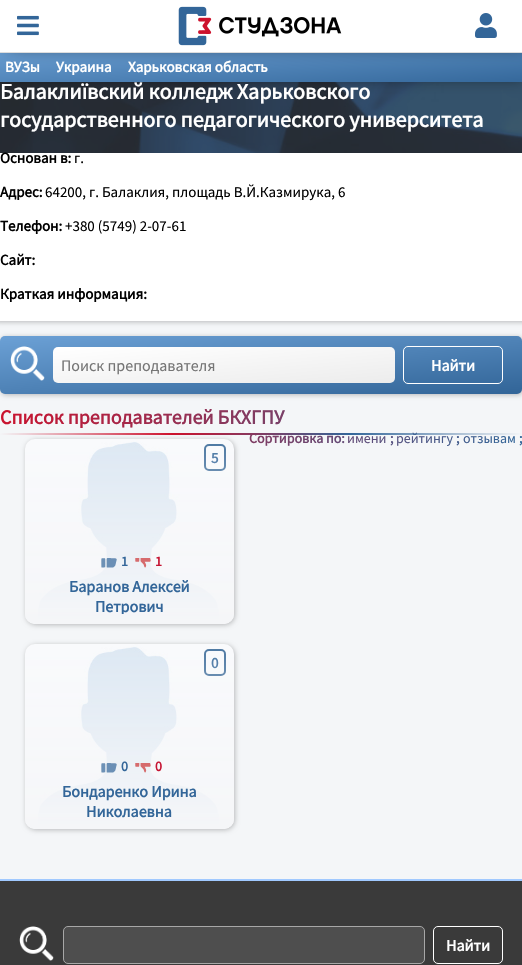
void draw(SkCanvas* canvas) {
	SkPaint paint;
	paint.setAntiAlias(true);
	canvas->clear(0xfff4f6f8);
	paint.setColor(0x40000000);
	paint.setMaskFilter(SkMaskFilter::MakeBlur(kNormal_SkBlurStyle, 2.5));
	canvas->drawRoundRect(SkRect::MakeXYWH(-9, -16, 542, 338), 8, 8, paint);
	paint.setMaskFilter(nullptr);
	canvas->drawImageRect(SkImages::DeferredFromEncodedData(SkData::MakeFromFileName("img4.png")), SkRect::MakeXYWH(0, 82, 522, 71), SkSamplingOptions());
	paint.setColor(0x66000000);
	paint.setMaskFilter(SkMaskFilter::MakeBlur(kNormal_SkBlurStyle, 7));
	canvas->drawRect(SkRect::MakeXYWH(1, 49, 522, 31), paint);
	paint.setMaskFilter(nullptr);
	{
		const SkColor colors[] = {0xff6a9fd4, 0xff336699};
		const float stops[] = {0, 1};
		const SkPoint ends[] = {{258, 28}, {264, 105}};
		paint.setShader(SkGradientShader::MakeLinear(ends, colors, stops, 2, SkTileMode::kClamp));
		paint.setAlpha(255);
	}
	canvas->drawRect(SkRect::MakeXYWH(0, 53, 522, 29), paint);
	paint.setShader(nullptr);
	paint.setColor(0xff000000);
	paint.setMaskFilter(SkMaskFilter::MakeBlur(kNormal_SkBlurStyle, 9.5));
	canvas->drawRect(SkRect::MakeXYWH(7, -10, 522, 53), paint);
	paint.setMaskFilter(nullptr);
	paint.setColor(0xffffffff);
	canvas->drawRect(SkRect::MakeXYWH(0, 0, 522, 52), paint);
	paint.setColor(0xffdddddd);
	canvas->drawRect(SkRect::MakeXYWH(0, 52, 522, 1), paint);
	canvas->drawImageRect(SkImages::DeferredFromEncodedData(SkData::MakeFromFileName("img1.png")), SkRect::MakeXYWH(17, 15, 22, 21), SkSamplingOptions());
	canvas->drawImageRect(SkImages::DeferredFromEncodedData(SkData::MakeFromFileName("img2.png")), SkRect::MakeXYWH(178, 6, 164, 40), SkSamplingOptions());
	canvas->drawImageRect(SkImages::DeferredFromEncodedData(SkData::MakeFromFileName("img3.png")), SkRect::MakeXYWH(475, 13, 22, 25), SkSamplingOptions());
	SkFont f1(fontMgr->matchFamilyStyle("Source Sans Pro", SkFontStyle::Bold()), 15);
	f1.setSubpixel(true);
	paint.setColor(0xffffffff);
	canvas->drawString("ВУЗы", 5, 72, f1, paint);
	canvas->drawString("Украина", 56, 72, f1, paint);
	canvas->drawString("Харьковская область", 128, 72, f1, paint);
	canvas->drawRect(SkRect::MakeXYWH(0, 153, 522, 168), paint);
	SkFont f2(fontMgr->matchFamilyStyle("Source Sans Pro", SkFontStyle::Bold()), 22);
	f2.setSubpixel(true);
	canvas->drawString("Балаклиївский колледж Харьковского", 0, 99, f2, paint);
	canvas->drawString("государственного педагогического университета", 0, 127, f2, paint);
	paint.setColor(0xff000000);
	canvas->drawString("Основан в:", 0, 163, f1, paint);
	SkFont f3(fontMgr->matchFamilyStyle("Source Sans Pro", SkFontStyle::Normal()), 15);
	f3.setSubpixel(true);
	canvas->drawString("г.", 74, 163, f3, paint);
	canvas->drawString("Адрес:", 0, 197, f1, paint);
	canvas->drawString("64200, г. Балаклия, площадь В.Й.Казмирука, 6", 45, 197, f3, paint);
	canvas->drawString("Телефон:", 0, 231, f1, paint);
	canvas->drawString("+380 (5749) 2-07-61", 65, 231, f3, paint);
	canvas->drawString("Сайт:", 0, 265, f1, paint);
	canvas->drawString("Краткая информация:", 0, 299, f1, paint);
	paint.setColor(0x40000000);
	paint.setMaskFilter(SkMaskFilter::MakeBlur(kNormal_SkBlurStyle, 2.5));
	canvas->drawRoundRect(SkRect::MakeXYWH(1, 337, 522, 58), 5, 5, paint);
	paint.setMaskFilter(nullptr);
	{
		const SkColor colors[] = {0xff6a9fd4, 0xff336699};
		const float stops[] = {0, 1};
		const SkPoint ends[] = {{256, 314}, {266, 416}};
		paint.setShader(SkGradientShader::MakeLinear(ends, colors, stops, 2, SkTileMode::kClamp));
		paint.setAlpha(255);
	}
	canvas->drawRoundRect(SkRect::MakeXYWH(0, 336, 522, 58), 5, 5, paint);
	canvas->drawImageRect(SkImages::DeferredFromEncodedData(SkData::MakeFromFileName("img5.png")), SkRect::MakeXYWH(10, 346, 35, 35), SkSamplingOptions());
	{
		const SkColor colors[] = {0xffffffff, 0xffececec};
		const float stops[] = {0, 1};
		const SkPoint ends[] = {{221, 332}, {227, 398}};
		paint.setShader(SkGradientShader::MakeLinear(ends, colors, stops, 2, SkTileMode::kClamp));
		paint.setAlpha(255);
	}
	canvas->drawRoundRect(SkRect::MakeXYWH(53, 347, 342, 36), 5, 5, paint);
	SkFont f4(fontMgr->matchFamilyStyle("Source Sans Pro", SkFontStyle::Normal()), 16);
	f4.setSubpixel(true);
	paint.setShader(nullptr);
	paint.setColor(0xff757575);
	canvas->drawString("Поиск преподавателя", 61, 371, f4, paint);
	paint.setStroke(true);
	paint.setStrokeWidth(1);
	paint.setColor(0xffffffff);
	canvas->drawRoundRect(SkRect::MakeXYWH(403.5, 346.5, 99, 37), 4.5, 4.5, paint);
	SkFont f5(fontMgr->matchFamilyStyle("Source Sans Pro", SkFontStyle::Bold()), 16);
	f5.setSubpixel(true);
	paint.setStroke(false);
	canvas->drawString("Найти", 431, 371, f5, paint);
	SkFont f6(fontMgr->matchFamilyStyle("Source Sans Pro", SkFontStyle::Bold()), 20);
	f6.setSubpixel(true);
	{
		const SkColor colors[] = {0xffcd122d, 0xff336699};
		const float stops[] = {0, 1};
		const SkPoint ends[] = {{45, 311}, {477, 522}};
		paint.setShader(SkGradientShader::MakeLinear(ends, colors, stops, 2, SkTileMode::kClamp));
		paint.setAlpha(255);
	}
	canvas->drawString("Список преподавателей БКХГПУ", 0, 424, f6, paint);
	SkFont f7(fontMgr->matchFamilyStyle("Source Sans Pro", SkFontStyle::Bold()), 14);
	f7.setSubpixel(true);
	canvas->drawString("Сортировка по:", 249, 443, f7, paint);
	SkFont f8(fontMgr->matchFamilyStyle("Source Sans Pro", SkFontStyle::Normal()), 14);
	f8.setSubpixel(true);
	canvas->drawString("имени", 347, 443, f8, paint);
	canvas->drawString(";", 390, 443, f7, paint);
	canvas->drawString("рейтингу", 396, 443, f8, paint);
	canvas->drawString(";", 456, 443, f7, paint);
	canvas->drawString("отзывам", 463, 443, f8, paint);
	canvas->drawString(";", 519, 443, f7, paint);
	{
		const SkColor colors[] = {0x00cd122d, 0xffcd122d, 0xff336699, 0x00336699};
		const float stops[] = {0, 0.33, 0.67, 1};
		const SkPoint ends[] = {{50, 331}, {472, 537}};
		paint.setShader(SkGradientShader::MakeLinear(ends, colors, stops, 4, SkTileMode::kClamp));
		paint.setAlpha(255);
	}
	canvas->drawRect(SkRect::MakeXYWH(0, 433, 522, 2), paint);
	paint.setShader(nullptr);
	paint.setColor(0x40000000);
	paint.setMaskFilter(SkMaskFilter::MakeBlur(kNormal_SkBlurStyle, 2.5));
	canvas->drawRoundRect(SkRect::MakeXYWH(26, 440, 209, 185), 10, 10, paint);
	paint.setMaskFilter(nullptr);
	canvas->drawImageRect(SkImages::DeferredFromEncodedData(SkData::MakeFromFileName("img6.png")), SkRect::MakeXYWH(25, 439, 209, 185), SkSamplingOptions());
	paint.setStroke(true);
	paint.setStrokeWidth(2);
	paint.setColor(0xff3a6a99);
	canvas->drawRoundRect(SkRect::MakeXYWH(205, 445, 20, 25), 4, 4, paint);
	paint.setStroke(false);
	paint.setColor(0xff336699);
	canvas->drawString("5", 211, 463, f1, paint);
	{
		const SkColor colors[] = {0x00f5f6f8, 0xfff5f6f8};
		const float stops[] = {0, 1};
		const SkPoint ends[] = {{130, 421}, {130, 624}};
		paint.setShader(SkGradientShader::MakeLinear(ends, colors, stops, 2, SkTileMode::kClamp));
		paint.setAlpha(255);
	}
	canvas->drawRoundRect(SkRect::MakeXYWH(25, 439, 209, 185), 10, 10, paint);
	canvas->drawImageRect(SkImages::DeferredFromEncodedData(SkData::MakeFromFileName("img7.png")), SkRect::MakeXYWH(101, 558, 16, 10), SkSamplingOptions());
	paint.setShader(nullptr);
	paint.setColor(0xff336699);
	canvas->drawString("1", 121, 566, f7, paint);
	canvas->drawImageRect(SkImages::DeferredFromEncodedData(SkData::MakeFromFileName("img8.png")), SkRect::MakeXYWH(135, 558, 16, 10), SkSamplingOptions());
	paint.setColor(0xffc61533);
	canvas->drawString("1", 155, 566, f7, paint);
	paint.setColor(0xff336699);
	canvas->drawString("Баранов Алексей", 69, 592, f5, paint);
	canvas->save();
	canvas->clipRect(SkRect::MakeXYWH(35, 576, 189, 38));
	canvas->drawString("Петрович", 95, 612, f5, paint);
	canvas->restore();
	paint.setColor(0x40000000);
	paint.setMaskFilter(SkMaskFilter::MakeBlur(kNormal_SkBlurStyle, 2.5));
	canvas->drawRoundRect(SkRect::MakeXYWH(26, 645, 209, 185), 10, 10, paint);
	paint.setMaskFilter(nullptr);
	canvas->drawImageRect(SkImages::DeferredFromEncodedData(SkData::MakeFromFileName("img9.png")), SkRect::MakeXYWH(25, 644, 209, 185), SkSamplingOptions());
	paint.setStroke(true);
	paint.setColor(0xff3a6a99);
	canvas->drawRoundRect(SkRect::MakeXYWH(205, 650, 20, 25), 4, 4, paint);
	paint.setStroke(false);
	paint.setColor(0xff336699);
	canvas->drawString("0", 211, 668, f1, paint);
	{
		const SkColor colors[] = {0x00f5f6f8, 0xfff5f6f8};
		const float stops[] = {0, 1};
		const SkPoint ends[] = {{130, 626}, {130, 829}};
		paint.setShader(SkGradientShader::MakeLinear(ends, colors, stops, 2, SkTileMode::kClamp));
		paint.setAlpha(255);
	}
	canvas->drawRoundRect(SkRect::MakeXYWH(25, 644, 209, 185), 10, 10, paint);
	canvas->drawImageRect(SkImages::DeferredFromEncodedData(SkData::MakeFromFileName("img7.png")), SkRect::MakeXYWH(101, 763, 16, 10), SkSamplingOptions());
	paint.setShader(nullptr);
	paint.setColor(0xff336699);
	canvas->drawString("0", 121, 771, f7, paint);
	canvas->drawImageRect(SkImages::DeferredFromEncodedData(SkData::MakeFromFileName("img8.png")), SkRect::MakeXYWH(135, 763, 16, 10), SkSamplingOptions());
	paint.setColor(0xffc61533);
	canvas->drawString("0", 155, 771, f7, paint);
	paint.setColor(0xff336699);
	canvas->drawString("Бондаренко Ирина", 62, 797, f5, paint);
	canvas->drawString("Николаевна", 86, 817, f5, paint);
	paint.setColor(0xff3a3a3a);
	canvas->drawRect(SkRect::MakeXYWH(0, 881, 522, 84), paint);
	paint.setColor(0xffa0c9ff);
	canvas->drawRect(SkRect::MakeXYWH(0, 879, 522, 2), paint);
	canvas->drawImageRect(SkImages::DeferredFromEncodedData(SkData::MakeFromFileName("img10.png")), SkRect::MakeXYWH(19, 926, 35, 35), SkSamplingOptions());
	paint.setColor(0xff4e4e4e);
	canvas->drawRoundRect(SkRect::MakeXYWH(63.5, 926.5, 361, 37), 4.5, 4.5, paint);
	paint.setStroke(true);
	paint.setStrokeWidth(1);
	paint.setColor(0xffa7a7a7);
	canvas->drawRoundRect(SkRect::MakeXYWH(63.5, 926.5, 361, 37), 4.5, 4.5, paint);
	paint.setColor(0xffffffff);
	canvas->drawRoundRect(SkRect::MakeXYWH(433.5, 926.5, 69, 37), 4.5, 4.5, paint);
	paint.setStroke(false);
	canvas->drawString("Найти", 446, 951, f5, paint);
}
